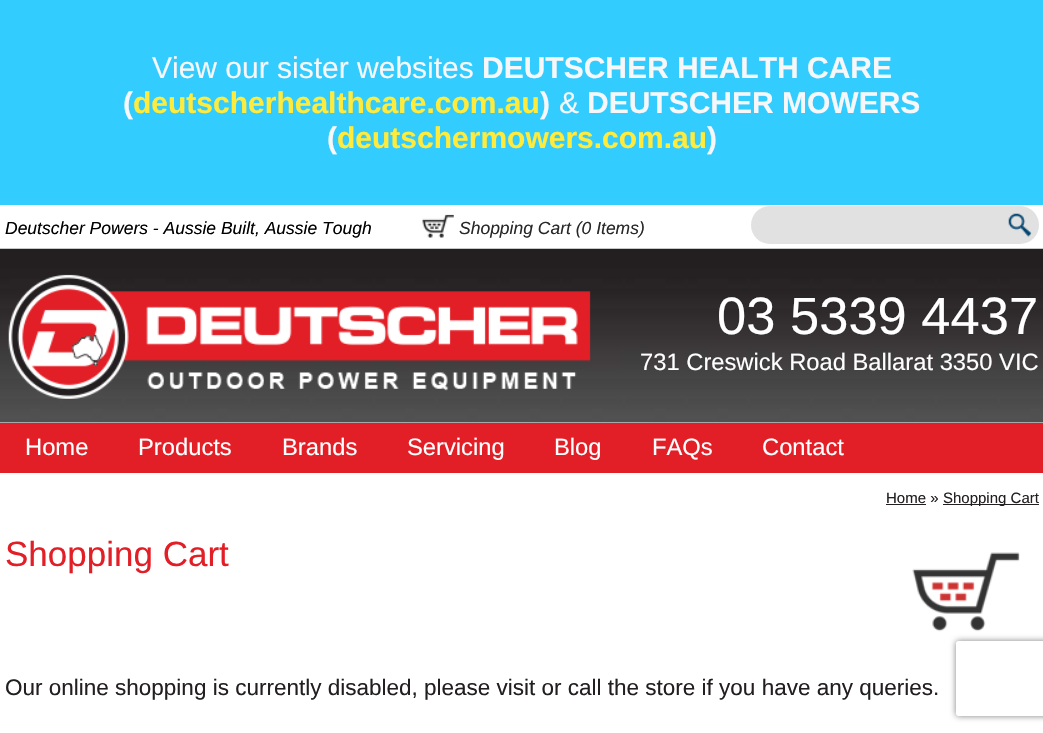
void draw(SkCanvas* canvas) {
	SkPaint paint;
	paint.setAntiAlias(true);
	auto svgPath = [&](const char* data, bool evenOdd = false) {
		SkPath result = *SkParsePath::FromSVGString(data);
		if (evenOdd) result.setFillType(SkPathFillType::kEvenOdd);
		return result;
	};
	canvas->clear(0xffffffff);
	paint.setColor(0xff33ccff);
	canvas->drawRect(SkRect::MakeXYWH(0, 0, 1043, 205), paint);
	SkFont f1(fontMgr->matchFamilyStyle("Liberation Sans", SkFontStyle::Normal()), 30);
	f1.setSubpixel(true);
	paint.setColor(0xfff7f7f9);
	canvas->drawString("View our sister websites", 152, 78, f1, paint);
	SkFont f2(fontMgr->matchFamilyStyle("Liberation Sans", SkFontStyle::Bold()), 30);
	f2.setSubpixel(true);
	canvas->drawString("DEUTSCHER HEALTH CARE", 482, 78, f2, paint);
	canvas->drawString("(", 123, 113, f2, paint);
	paint.setColor(0xffffeb3b);
	canvas->drawString("deutscherhealthcare.com.au", 133, 113, f2, paint);
	paint.setColor(0xfff7f7f9);
	canvas->drawString(")", 540, 113, f2, paint);
	canvas->drawString("&", 559, 113, f1, paint);
	canvas->drawString("DEUTSCHER MOWERS", 587, 113, f2, paint);
	canvas->drawString("(", 327, 148, f2, paint);
	paint.setColor(0xffffeb3b);
	canvas->drawString("deutschermowers.com.au", 337, 148, f2, paint);
	paint.setColor(0xfff7f7f9);
	canvas->drawString(")", 707, 148, f2, paint);
	SkFont f3(fontMgr->matchFamilyStyle("Liberation Sans", SkFontStyle::Italic()), 17.5);
	f3.setSubpixel(true);
	paint.setColor(0xff000000);
	canvas->drawString("Deutscher Powers - Aussie Built, Aussie Tough", 5, 234, f3, paint);
	canvas->drawImageRect(SkImages::DeferredFromEncodedData(SkData::MakeFromFileName("img1.png")), SkRect::MakeXYWH(422, 214, 32, 24), SkSamplingOptions());
	paint.setColor(0xff282828);
	canvas->drawString("Shopping Cart (0 Items)", 459, 234, f3, paint);
	paint.setColor(0xffe1e1e1);
	canvas->drawRoundRect(SkRect::MakeXYWH(751, 206, 288, 38), 19, 19, paint);
	canvas->drawImageRect(SkImages::DeferredFromEncodedData(SkData::MakeFromFileName("img2.png")), SkRect::MakeXYWH(1008, 213, 24, 24), SkSamplingOptions());
	canvas->drawImageRect(SkImages::DeferredFromEncodedData(SkData::MakeFromFileName("img3.png")), SkRect::MakeXYWH(0, 248, 1043, 175), SkSamplingOptions());
	canvas->drawImageRect(SkImages::DeferredFromEncodedData(SkData::MakeFromFileName("img4.png")), SkRect::MakeXYWH(8, 274, 583, 125), SkSamplingOptions());
	SkFont f4(fontMgr->matchFamilyStyle("Liberation Sans", SkFontStyle::Normal()), 52.5);
	f4.setSubpixel(true);
	paint.setColor(0xffffffff);
	canvas->drawString("03 5339 4437", 717, 334, f4, paint);
	SkFont f5(fontMgr->matchFamilyStyle("Liberation Sans", SkFontStyle::Normal()), 23.75);
	f5.setSubpixel(true);
	canvas->drawString("731 Creswick Road Ballarat 3350 VIC", 640, 370, f5, paint);
	paint.setColor(0xffe21e26);
	canvas->drawRect(SkRect::MakeXYWH(0, 423, 1043, 50), paint);
	paint.setColor(0xffffffff);
	canvas->drawString("Home", 25, 455, f5, paint);
	canvas->drawString("Products", 138, 455, f5, paint);
	canvas->drawString("Brands", 282, 455, f5, paint);
	canvas->drawString("Servicing", 407, 455, f5, paint);
	canvas->drawString("Blog", 554, 455, f5, paint);
	canvas->drawString("FAQs", 652, 455, f5, paint);
	canvas->drawString("Contact", 762, 455, f5, paint);
	SkFont f6(fontMgr->matchFamilyStyle("Liberation Sans", SkFontStyle::Normal()), 15);
	f6.setSubpixel(true);
	paint.setColor(0xff231f20);
	canvas->drawString("Home »", 886, 503, f6, paint);
	canvas->drawRect(SkRect::MakeXYWH(886, 504, 40, 1), paint);
	canvas->drawRect(SkRect::MakeXYWH(943, 504, 96, 1), paint);
	canvas->drawString("Shopping Cart", 943, 503, f6, paint);
	SkFont f7(fontMgr->matchFamilyStyle("Liberation Sans", SkFontStyle::Normal()), 35);
	f7.setSubpixel(true);
	paint.setColor(0xffe21e26);
	canvas->drawString("Shopping Cart", 5, 566, f7, paint);
	canvas->drawImageRect(SkImages::DeferredFromEncodedData(SkData::MakeFromFileName("img5.png")), SkRect::MakeXYWH(912, 552, 108, 80), SkSamplingOptions());
	SkFont f8(fontMgr->matchFamilyStyle("Liberation Sans", SkFontStyle::Normal()), 22.5);
	f8.setSubpixel(true);
	paint.setColor(0xff231f20);
	canvas->drawString("Our online shopping is currently disabled, please visit or call the store if you have any queries.", 5, 695, f8, paint);
	canvas->save();
	canvas->clipPath(svgPath("M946 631H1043V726H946ZM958.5 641H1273.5C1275 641 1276 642 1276 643.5V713.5C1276 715 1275 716 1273.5 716H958.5C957 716 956 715 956 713.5V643.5C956 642 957 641 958.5 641Z", true), true);
	paint.setColor(0xff808080);
	paint.setMaskFilter(SkMaskFilter::MakeBlur(kNormal_SkBlurStyle, 3));
	canvas->drawRoundRect(SkRect::MakeXYWH(956, 641, 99, 75), 2.5, 2.5, paint);
	paint.setMaskFilter(nullptr);
	canvas->restore();
}
